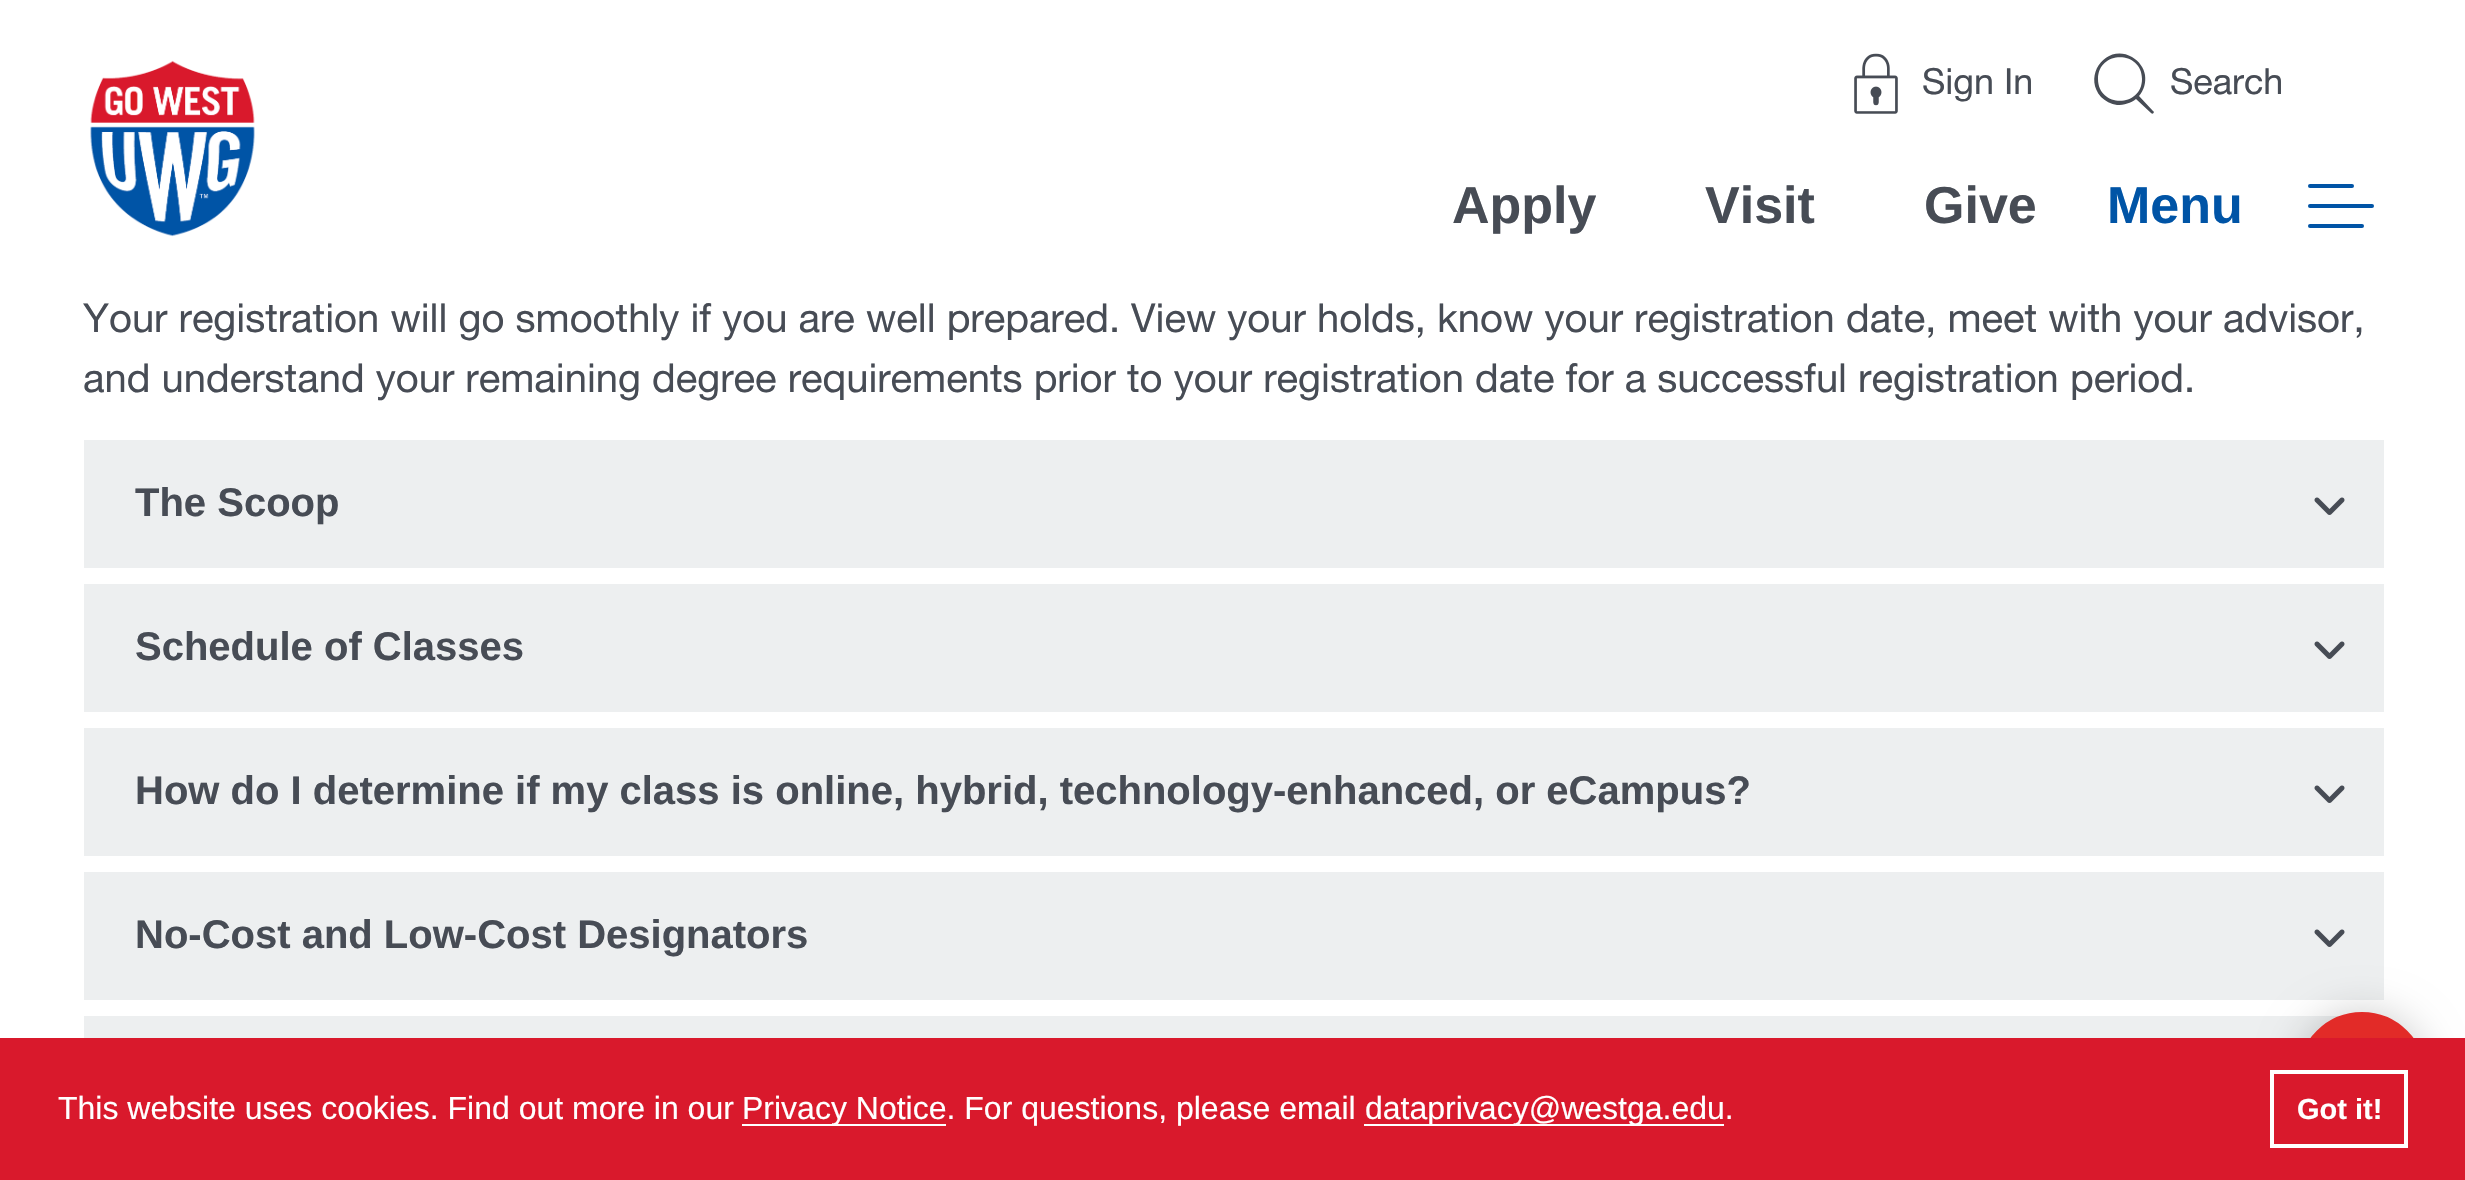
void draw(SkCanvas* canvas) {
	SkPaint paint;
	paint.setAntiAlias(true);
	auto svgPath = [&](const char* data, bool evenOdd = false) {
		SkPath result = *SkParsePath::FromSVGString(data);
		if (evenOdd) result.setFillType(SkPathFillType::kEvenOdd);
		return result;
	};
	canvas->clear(0xffffffff);
	canvas->drawImageRect(SkImages::DeferredFromEncodedData(SkData::MakeFromFileName("img1.png")), SkRect::MakeXYWH(90, 60, 165, 177), SkSamplingOptions());
	canvas->drawImageRect(SkImages::DeferredFromEncodedData(SkData::MakeFromFileName("img2.png")), SkRect::MakeXYWH(1854, 53, 44, 61), SkSamplingOptions());
	SkFont f1(fontMgr->matchFamilyStyle("Helvetica Neue", SkFontStyle::Normal()), 36);
	f1.setSubpixel(true);
	paint.setColor(0xff474c55);
	canvas->drawString("Sign In", 1922, 94, f1, paint);
	canvas->drawPath(svgPath("M2153 111L2139 96C2144 90 2146 83 2145 75C2144 68 2139 61 2132 57C2107 43 2082 75 2101 97C2105 101 2111 104 2117 105C2124 105 2131 103 2136 99L2151 113C2153 115 2155 112 2153 111ZM2098 79C2098 50 2142 50 2142 79C2142 108 2098 108 2098 79Z"), paint);
	canvas->drawString("Search", 2170, 94, f1, paint);
	SkFont f2(fontMgr->matchFamilyStyle("Liberation Sans", SkFontStyle::Bold()), 52);
	f2.setSubpixel(true);
	canvas->drawString("Apply", 1452, 223, f2, paint);
	canvas->drawString("Visit", 1705, 223, f2, paint);
	canvas->drawString("Give", 1924, 223, f2, paint);
	paint.setColor(0xff0054a6);
	canvas->drawString("Menu", 2107, 223, f2, paint);
	canvas->drawRoundRect(SkRect::MakeXYWH(2308, 184, 46, 4), 2, 2, paint);
	canvas->drawRoundRect(SkRect::MakeXYWH(2308, 204, 66, 4), 2, 2, paint);
	canvas->drawRoundRect(SkRect::MakeXYWH(2308, 224, 56, 4), 2, 2, paint);
	SkFont f3(fontMgr->matchFamilyStyle("Helvetica Neue", SkFontStyle::Normal()), 40);
	f3.setSubpixel(true);
	paint.setColor(0xff474c55);
	canvas->drawString("Your registration will go smoothly if you are well prepared. View your holds, know your registration date, meet with your advisor,", 83, 332, f3, paint);
	canvas->drawString("and understand your remaining degree requirements prior to your registration date for a successful registration period.", 83, 392, f3, paint);
	paint.setColor(0xffedeff0);
	canvas->drawRect(SkRect::MakeXYWH(84, 440, 2300, 128), paint);
	SkFont f4(fontMgr->matchFamilyStyle("Liberation Sans", SkFontStyle::Bold()), 40);
	f4.setSubpixel(true);
	paint.setColor(0xff474c55);
	canvas->drawString("The Scoop", 135, 516, f4, paint);
	canvas->drawImageRect(SkImages::DeferredFromEncodedData(SkData::MakeFromFileName("img3.png")), SkRect::MakeXYWH(2314, 497, 31, 18), SkSamplingOptions());
	paint.setColor(0xffedeff0);
	canvas->drawRect(SkRect::MakeXYWH(84, 584, 2300, 128), paint);
	paint.setColor(0xff474c55);
	canvas->drawString("Schedule of Classes", 135, 660, f4, paint);
	canvas->drawImageRect(SkImages::DeferredFromEncodedData(SkData::MakeFromFileName("img3.png")), SkRect::MakeXYWH(2314, 641, 31, 18), SkSamplingOptions());
	paint.setColor(0xffedeff0);
	canvas->drawRect(SkRect::MakeXYWH(84, 728, 2300, 128), paint);
	paint.setColor(0xff474c55);
	canvas->drawString("How do I determine if my class is online, hybrid, technology-enhanced, or eCampus?", 135, 804, f4, paint);
	canvas->drawImageRect(SkImages::DeferredFromEncodedData(SkData::MakeFromFileName("img3.png")), SkRect::MakeXYWH(2314, 785, 31, 18), SkSamplingOptions());
	paint.setColor(0xffedeff0);
	canvas->drawRect(SkRect::MakeXYWH(84, 872, 2300, 128), paint);
	paint.setColor(0xff474c55);
	canvas->drawString("No-Cost and Low-Cost Designators", 135, 948, f4, paint);
	canvas->drawImageRect(SkImages::DeferredFromEncodedData(SkData::MakeFromFileName("img3.png")), SkRect::MakeXYWH(2314, 929, 31, 18), SkSamplingOptions());
	paint.setColor(0xffedeff0);
	canvas->drawRect(SkRect::MakeXYWH(84, 1016, 2256, 22), paint);
	paint.setColor(0x33000000);
	paint.setMaskFilter(SkMaskFilter::MakeBlur(kNormal_SkBlurStyle, 20));
	canvas->drawRoundRect(SkRect::MakeXYWH(2298, 1012, 128, 128), 64, 64, paint);
	paint.setMaskFilter(nullptr);
	paint.setColor(0xffe22b28);
	canvas->drawCircle(2362, 1076, 62, paint);
	paint.setStroke(true);
	paint.setStrokeWidth(4);
	canvas->drawCircle(2362, 1076, 62, paint);
	paint.setStroke(false);
	paint.setColor(0xffd9192c);
	canvas->drawRect(SkRect::MakeXYWH(0, 1038, 2465, 142), paint);
	SkFont f5(fontMgr->matchFamilyStyle("Liberation Sans", SkFontStyle::Normal()), 32);
	f5.setSubpixel(true);
	paint.setColor(0xffffffff);
	canvas->drawString("This website uses cookies. Find out more in our", 58, 1119, f5, paint);
	canvas->drawRect(SkRect::MakeXYWH(742, 1124, 204, 2), paint);
	canvas->drawString("Privacy Notice. For questions, please email", 742, 1119, f5, paint);
	canvas->drawRect(SkRect::MakeXYWH(1364, 1124, 360, 2), paint);
	canvas->drawString("dataprivacy@westga.edu.", 1365, 1119, f5, paint);
	paint.setStroke(true);
	canvas->drawRect(SkRect::MakeXYWH(2272, 1072, 134, 74), paint);
	SkFont f6(fontMgr->matchFamilyStyle("Liberation Sans", SkFontStyle::Bold()), 29);
	f6.setSubpixel(true);
	paint.setStroke(false);
	canvas->drawString("Got it!", 2297, 1119, f6, paint);
}
